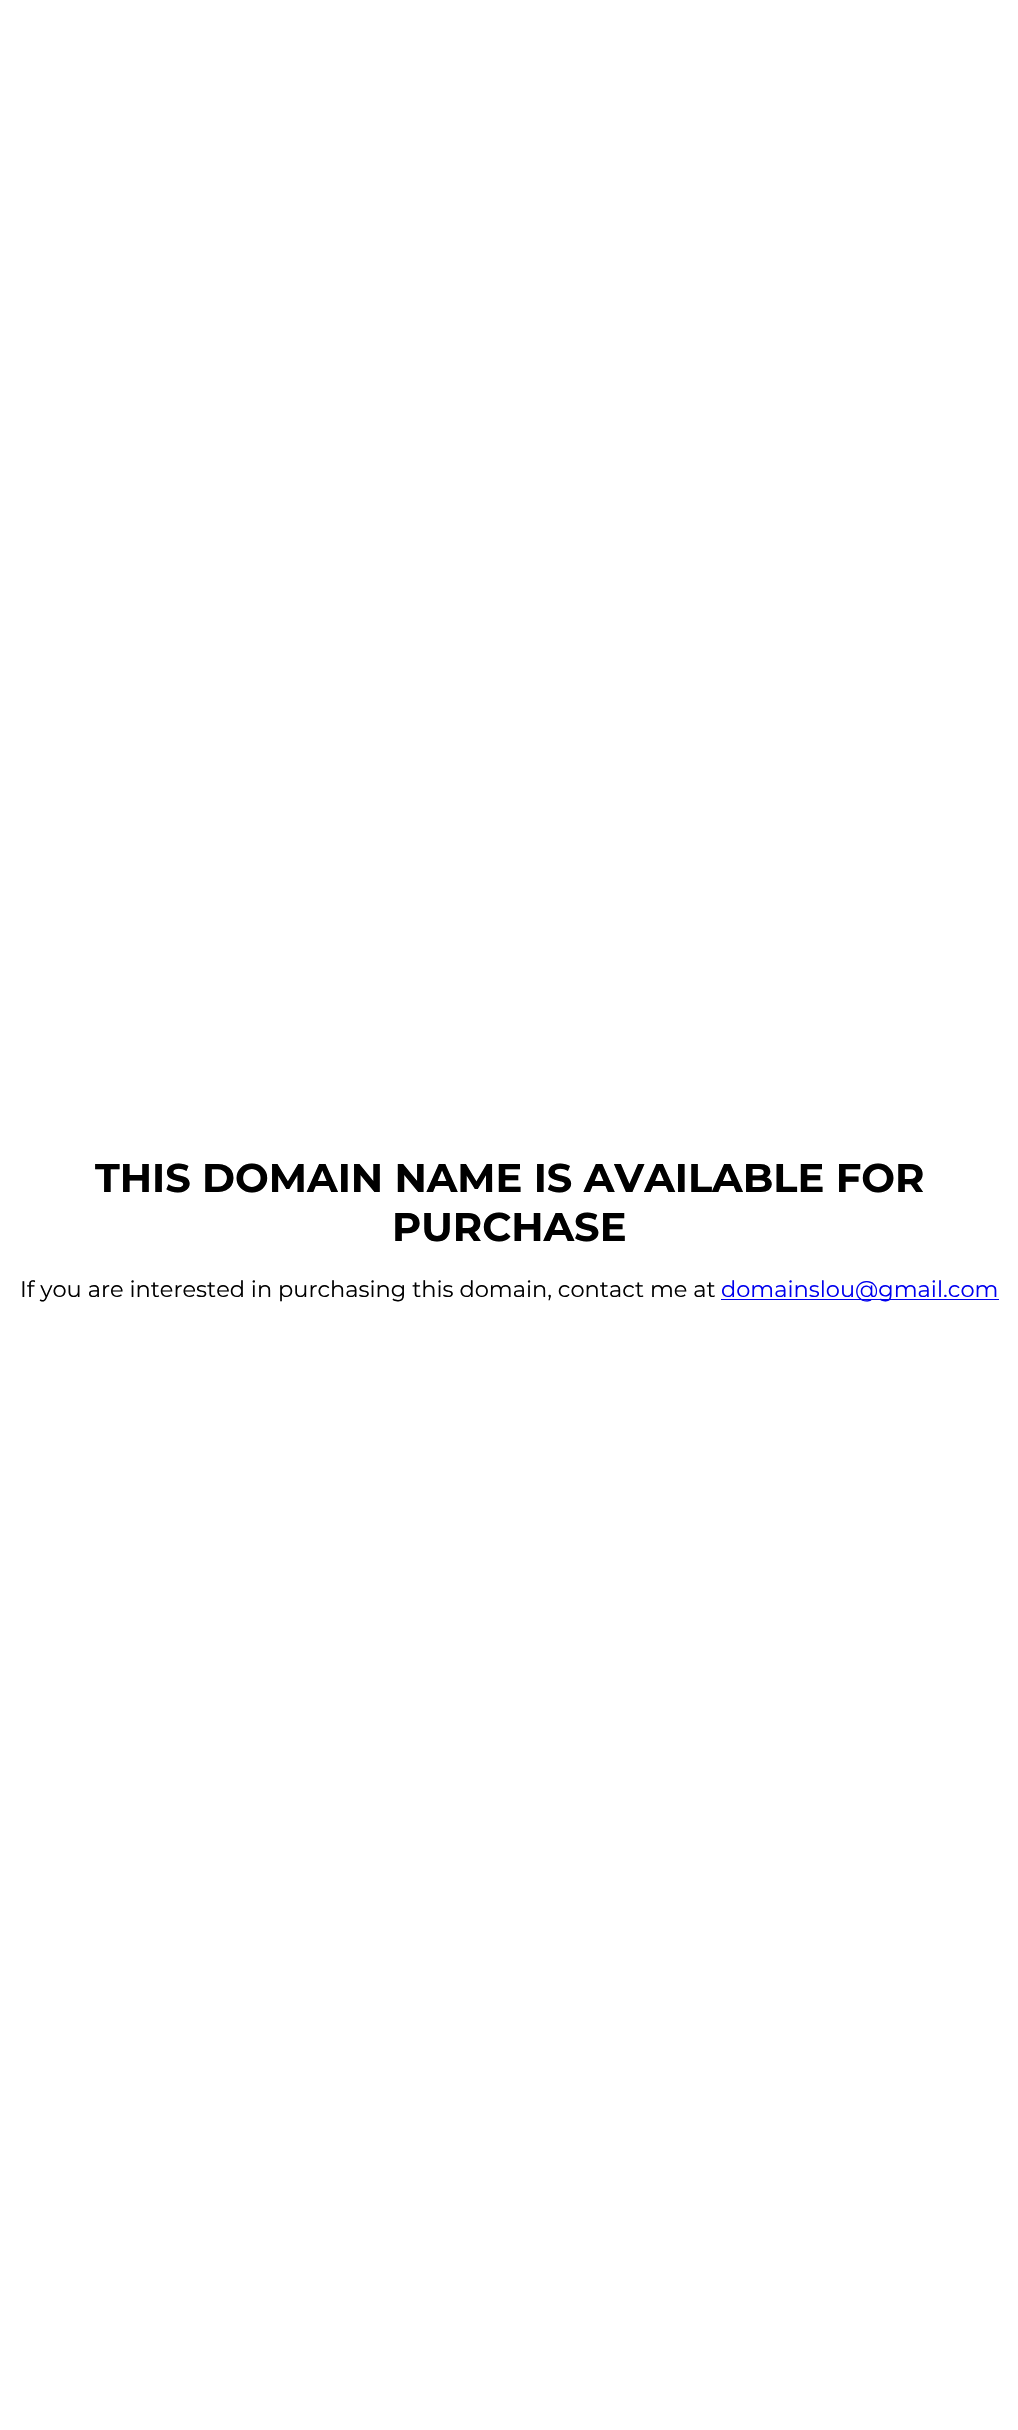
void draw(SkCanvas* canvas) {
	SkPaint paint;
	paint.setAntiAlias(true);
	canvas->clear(0xffffffff);
	SkFont f1(fontMgr->matchFamilyStyle("Montserrat", SkFontStyle::Bold()), 40);
	f1.setSubpixel(true);
	paint.setColor(0xff000000);
	canvas->drawString("THIS DOMAIN NAME IS AVAILABLE FOR", 95, 1192, f1, paint);
	canvas->drawString("PURCHASE", 392, 1241, f1, paint);
	SkFont f2(fontMgr->matchFamilyStyle("Montserrat", SkFontStyle::Normal()), 22.5);
	f2.setSubpixel(true);
	canvas->drawString("If you are interested in purchasing this domain, contact me at", 20, 1297, f2, paint);
	paint.setColor(0xff0000ee);
	canvas->drawRect(SkRect::MakeXYWH(721, 1299, 278, 1), paint);
	canvas->drawString("domainslou@gmail.com", 721, 1297, f2, paint);
}
